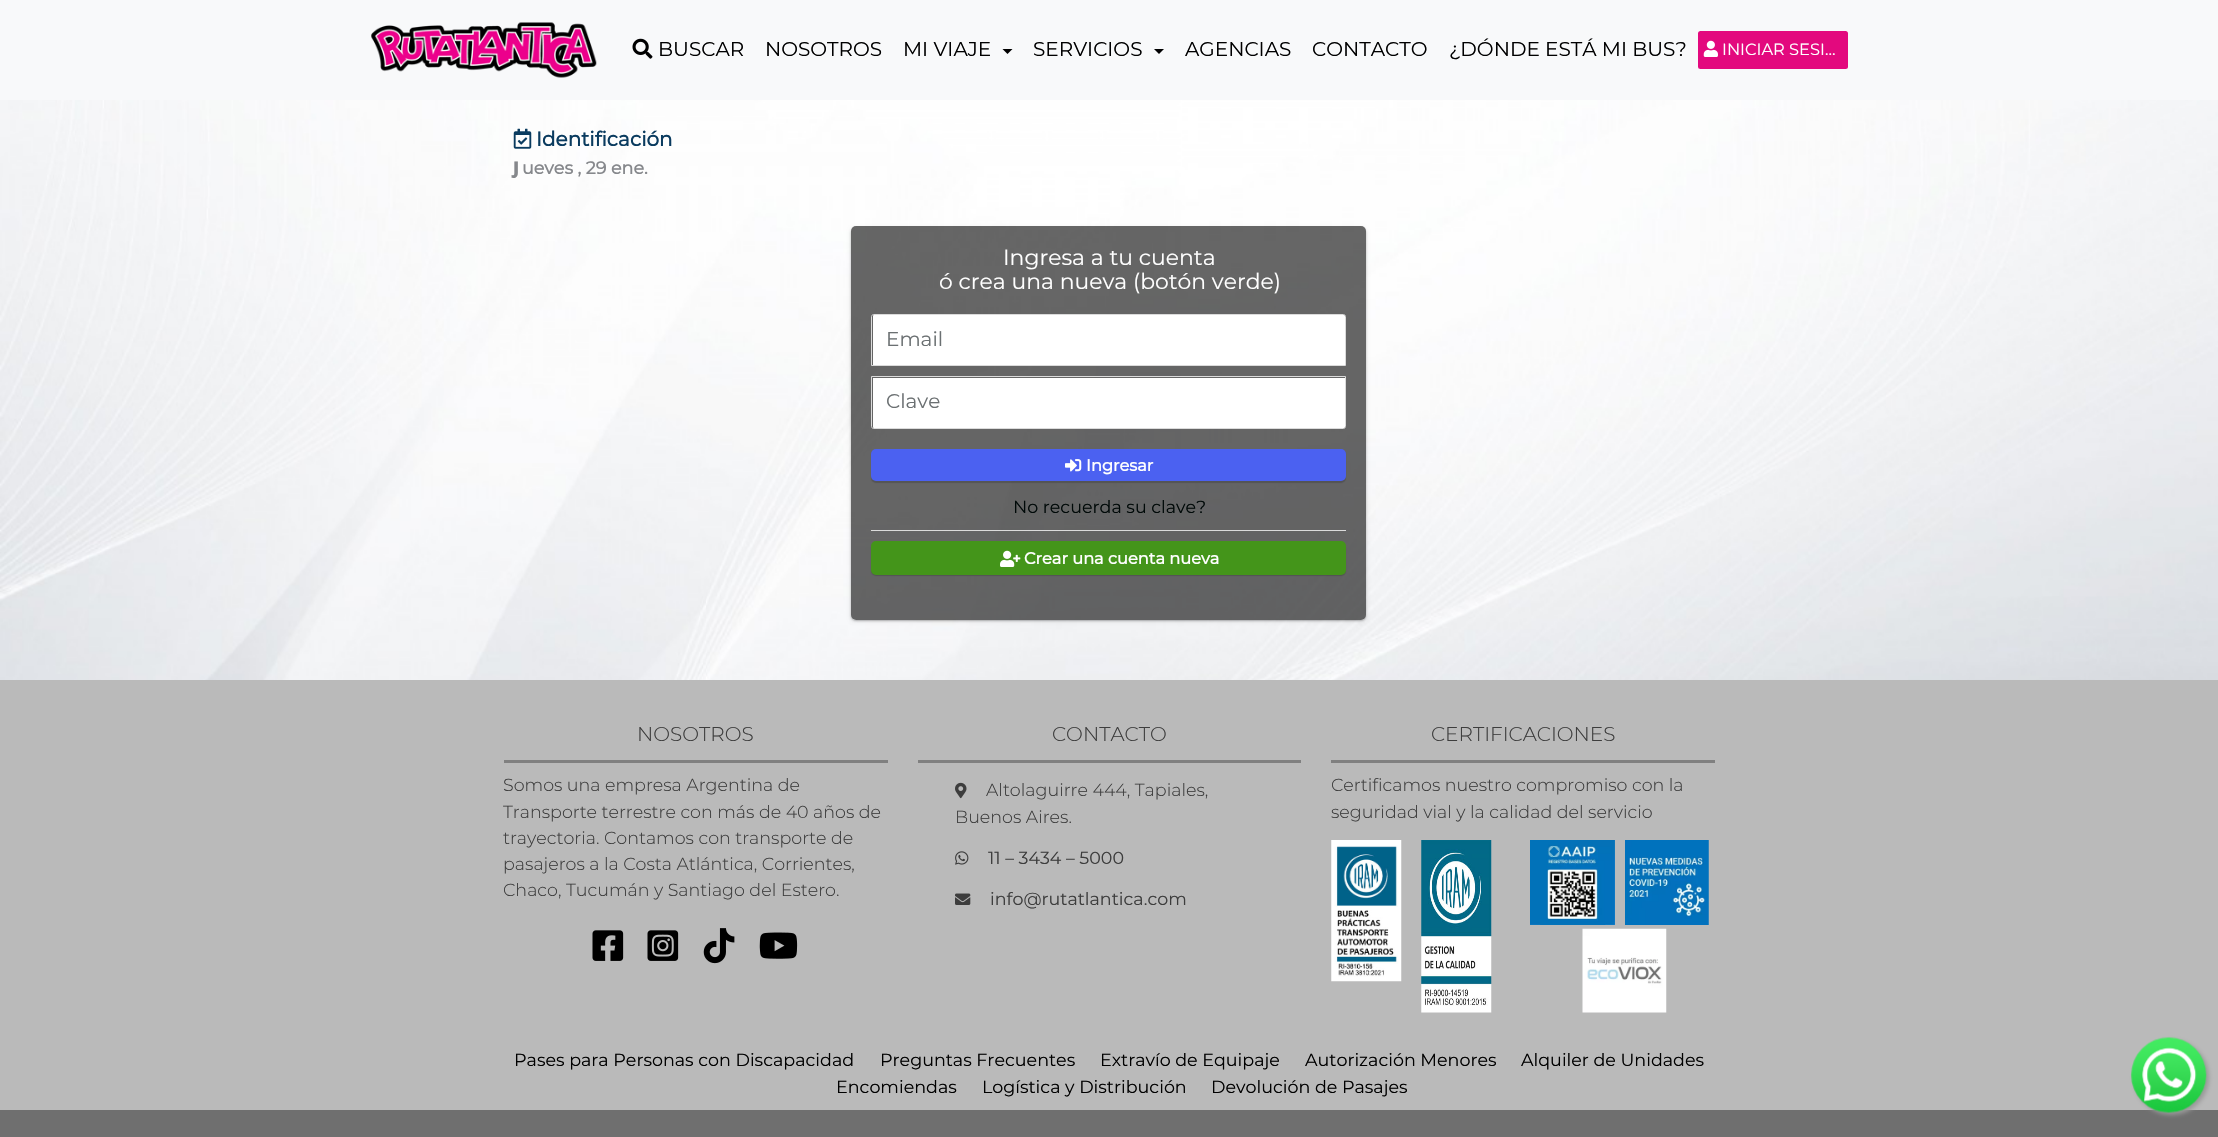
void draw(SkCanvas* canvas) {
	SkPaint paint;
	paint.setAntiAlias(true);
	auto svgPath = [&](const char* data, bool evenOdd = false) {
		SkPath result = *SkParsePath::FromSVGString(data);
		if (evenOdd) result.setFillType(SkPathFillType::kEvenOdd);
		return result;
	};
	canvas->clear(0xffffffff);
	canvas->drawImageRect(SkImages::DeferredFromEncodedData(SkData::MakeFromFileName("img1.png")), SkRect::MakeXYWH(0, 100, 2218, 580), SkSamplingOptions());
	paint.setColor(0xfff8f9fa);
	canvas->drawRect(SkRect::MakeXYWH(0, 0, 2218, 100), paint);
	canvas->drawImageRect(SkImages::DeferredFromEncodedData(SkData::MakeFromFileName("img2.png")), SkRect::MakeXYWH(371, 22, 226, 56), SkSamplingOptions());
	canvas->drawImageRect(SkImages::DeferredFromEncodedData(SkData::MakeFromFileName("img3.png")), SkRect::MakeXYWH(632, 38, 21, 21), SkSamplingOptions());
	SkFont f1(fontMgr->matchFamilyStyle("Montserrat", SkFontStyle::Normal()), 20);
	f1.setSubpixel(true);
	paint.setColor(0xff000000);
	canvas->drawString("BUSCAR", 658, 56, f1, paint);
	canvas->drawString("NOSOTROS", 765, 56, f1, paint);
	canvas->drawString("MI VIAJE", 903, 56, f1, paint);
	canvas->drawPath(svgPath("M1002.5 49H1012.5L1007.5 54Z"), paint);
	canvas->drawString("SERVICIOS", 1033, 56, f1, paint);
	canvas->drawPath(svgPath("M1154 49H1164L1159 54Z"), paint);
	canvas->drawString("AGENCIAS", 1185, 56, f1, paint);
	canvas->drawString("CONTACTO", 1312, 56, f1, paint);
	canvas->drawString("¿DÓNDE ESTÁ MI BUS?", 1449, 56, f1, paint);
	paint.setColor(0xffe3097e);
	canvas->drawRoundRect(SkRect::MakeXYWH(1698, 31, 150, 38), 2.5, 2.5, paint);
	canvas->drawImageRect(SkImages::DeferredFromEncodedData(SkData::MakeFromFileName("img4.png")), SkRect::MakeXYWH(1703, 40, 15, 17), SkSamplingOptions());
	SkFont f2(fontMgr->matchFamilyStyle("Montserrat", SkFontStyle::Normal()), 16.25);
	f2.setSubpixel(true);
	paint.setColor(0xffffffff);
	canvas->drawString("INICIAR SESI…", 1722, 55, f2, paint);
	canvas->drawImageRect(SkImages::DeferredFromEncodedData(SkData::MakeFromFileName("img5.png")), SkRect::MakeXYWH(513, 128, 19, 21), SkSamplingOptions());
	SkFont f3(fontMgr->matchFamilyStyle("Montserrat", SkFontStyle::Bold()), 20);
	f3.setSubpixel(true);
	paint.setColor(0xff0a3b5f);
	canvas->drawString("Identificación", 536, 146, f3, paint);
	SkFont f4(fontMgr->matchFamilyStyle("Noto Sans", SkFontStyle(900, SkFontStyle::kNormal_Width, SkFontStyle::kUpright_Slant)), 17.5);
	f4.setSubpixel(true);
	paint.setColor(0xff86888c);
	canvas->drawString("J", 513, 174, f4, paint);
	SkFont f5(fontMgr->matchFamilyStyle("Montserrat", SkFontStyle::Bold()), 17.5);
	f5.setSubpixel(true);
	canvas->drawString("ueves , 29 ene.", 522, 174, f5, paint);
	canvas->save();
	canvas->clipPath(svgPath("M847 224H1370V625H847ZM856 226H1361C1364 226 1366 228 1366 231V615C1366 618 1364 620 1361 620H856C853 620 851 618 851 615V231C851 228 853 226 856 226Z", true), true);
	paint.setColor(0x3d000000);
	paint.setMaskFilter(SkMaskFilter::MakeBlur(kNormal_SkBlurStyle, 1));
	canvas->drawRoundRect(SkRect::MakeXYWH(851, 228, 515, 393), 5, 5, paint);
	paint.setMaskFilter(nullptr);
	canvas->restore();
	canvas->save();
	canvas->clipPath(svgPath("M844 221H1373V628H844ZM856 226H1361C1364 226 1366 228 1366 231V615C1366 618 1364 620 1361 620H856C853 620 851 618 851 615V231C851 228 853 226 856 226Z", true), true);
	paint.setColor(0x1f000000);
	paint.setMaskFilter(SkMaskFilter::MakeBlur(kNormal_SkBlurStyle, 2));
	canvas->drawRoundRect(SkRect::MakeXYWH(851, 228, 515, 393), 5, 5, paint);
	paint.setMaskFilter(nullptr);
	canvas->restore();
	paint.setColor(0x99000000);
	canvas->drawRoundRect(SkRect::MakeXYWH(851, 226, 515, 394), 5, 5, paint);
	SkFont f6(fontMgr->matchFamilyStyle("Montserrat", SkFontStyle::Normal()), 21.9);
	f6.setSubpixel(true);
	paint.setColor(0xffffffff);
	canvas->drawString("Ingresa a tu cuenta", 1003, 265, f6, paint);
	canvas->drawString("ó crea una nueva (botón verde)", 939, 289, f6, paint);
	canvas->drawPath(svgPath("M874 315H1344C1344.5 315 1345 315.5 1345 316V365H873V316C873 315.5 873.5 315 874 315Z"), paint);
	paint.setStroke(true);
	paint.setStrokeWidth(1);
	paint.setColor(0xffdbdbdb);
	canvas->drawPath(svgPath("M873.5 314.5H1343.5C1344.5 314.5 1345.5 315.5 1345.5 316.5V365.5H871.5V316.5C871.5 315.5 872.5 314.5 873.5 314.5Z"), paint);
	paint.setStroke(false);
	paint.setColor(0xff6b7072);
	canvas->drawString("Email", 886, 346, f1, paint);
	paint.setColor(0xffffffff);
	canvas->drawPath(svgPath("M873 378H1345V427C1345 427.5 1344.5 428 1344 428H874C873.5 428 873 427.5 873 427Z"), paint);
	paint.setStroke(true);
	paint.setColor(0xffdbdbdb);
	canvas->drawPath(svgPath("M871.5 376.5H1345.5V426.5C1345.5 427.5 1344.5 428.5 1343.5 428.5H873.5C872.5 428.5 871.5 427.5 871.5 426.5Z"), paint);
	paint.setStroke(false);
	paint.setColor(0xff6b7072);
	canvas->drawString("Clave", 886, 408, f1, paint);
	paint.setColor(0x29000000);
	paint.setMaskFilter(SkMaskFilter::MakeBlur(kNormal_SkBlurStyle, 0.5));
	canvas->drawRoundRect(SkRect::MakeXYWH(871, 450, 475, 33), 5, 5, paint);
	paint.setMaskFilter(nullptr);
	paint.setColor(0xff4b61f1);
	canvas->drawRoundRect(SkRect::MakeXYWH(871, 449, 475, 32), 5, 5, paint);
	canvas->drawImageRect(SkImages::DeferredFromEncodedData(SkData::MakeFromFileName("img6.png")), SkRect::MakeXYWH(1065, 459, 17, 13), SkSamplingOptions());
	SkFont f7(fontMgr->matchFamilyStyle("Montserrat", SkFontStyle::Bold()), 16.25);
	f7.setSubpixel(true);
	paint.setColor(0xffffffff);
	canvas->drawString("Ingresar", 1086, 471, f7, paint);
	SkFont f8(fontMgr->matchFamilyStyle("Montserrat", SkFontStyle::Normal()), 17.5);
	f8.setSubpixel(true);
	paint.setColor(0xff000908);
	canvas->drawString("No recuerda su clave?", 1013, 513, f8, paint);
	paint.setColor(0xffdbdbdb);
	canvas->drawRect(SkRect::MakeXYWH(871, 530, 475, 1), paint);
	paint.setColor(0x29000000);
	paint.setMaskFilter(SkMaskFilter::MakeBlur(kNormal_SkBlurStyle, 0.5));
	canvas->drawRoundRect(SkRect::MakeXYWH(871, 543, 475, 33), 5, 5, paint);
	paint.setMaskFilter(nullptr);
	paint.setColor(0xff44951a);
	canvas->drawRoundRect(SkRect::MakeXYWH(871, 541, 475, 34), 5, 5, paint);
	canvas->drawImageRect(SkImages::DeferredFromEncodedData(SkData::MakeFromFileName("img7.png")), SkRect::MakeXYWH(1000, 550, 21, 17), SkSamplingOptions());
	paint.setColor(0xffffffff);
	canvas->drawString("Crear una cuenta nueva", 1024, 564, f7, paint);
	paint.setColor(0xffbababa);
	canvas->drawRect(SkRect::MakeXYWH(0, 680, 2218, 430), paint);
	SkFont f9(fontMgr->matchFamilyStyle("Montserrat", SkFontStyle(300, SkFontStyle::kNormal_Width, SkFontStyle::kUpright_Slant)), 20);
	f9.setSubpixel(true);
	paint.setColor(0xff3d3d3d);
	canvas->drawString("NOSOTROS", 637, 741, f9, paint);
	paint.setColor(0xff808080);
	canvas->drawRect(SkRect::MakeXYWH(504, 760, 384, 3), paint);
	SkFont f10(fontMgr->matchFamilyStyle("Montserrat", SkFontStyle(300, SkFontStyle::kNormal_Width, SkFontStyle::kUpright_Slant)), 17.5);
	f10.setSubpixel(true);
	paint.setColor(0xff3d3d3d);
	canvas->drawString("Somos una empresa Argentina de", 503, 791, f10, paint);
	canvas->drawString("Transporte terrestre con más de 40 años de", 503, 818, f10, paint);
	canvas->drawString("trayectoria. Contamos con transporte de", 503, 844, f10, paint);
	canvas->drawString("pasajeros a la Costa Atlántica, Corrientes,", 503, 870, f10, paint);
	canvas->drawString("Chaco, Tucumán y Santiago del Estero.", 503, 896, f10, paint);
	canvas->drawImageRect(SkImages::DeferredFromEncodedData(SkData::MakeFromFileName("img8.png")), SkRect::MakeXYWH(592, 930, 32, 31), SkSamplingOptions());
	canvas->drawImageRect(SkImages::DeferredFromEncodedData(SkData::MakeFromFileName("img9.png")), SkRect::MakeXYWH(647, 930, 32, 31), SkSamplingOptions());
	canvas->drawImageRect(SkImages::DeferredFromEncodedData(SkData::MakeFromFileName("img10.png")), SkRect::MakeXYWH(703, 928, 32, 36), SkSamplingOptions());
	canvas->drawImageRect(SkImages::DeferredFromEncodedData(SkData::MakeFromFileName("img11.png")), SkRect::MakeXYWH(759, 932, 39, 27), SkSamplingOptions());
	canvas->drawString("CONTACTO", 1052, 741, f9, paint);
	paint.setColor(0xff808080);
	canvas->drawRect(SkRect::MakeXYWH(918, 760, 383, 3), paint);
	canvas->drawImageRect(SkImages::DeferredFromEncodedData(SkData::MakeFromFileName("img12.png")), SkRect::MakeXYWH(955, 782, 12, 17), SkSamplingOptions());
	paint.setColor(0xff3d3d3d);
	canvas->drawString("Altolaguirre 444, Tapiales,", 986, 796, f10, paint);
	canvas->drawString("Buenos Aires.", 955, 823, f10, paint);
	canvas->drawImageRect(SkImages::DeferredFromEncodedData(SkData::MakeFromFileName("img13.png")), SkRect::MakeXYWH(955, 851, 14, 14), SkSamplingOptions());
	canvas->drawString("11 – 3434 – 5000", 988, 864, f8, paint);
	canvas->drawImageRect(SkImages::DeferredFromEncodedData(SkData::MakeFromFileName("img14.png")), SkRect::MakeXYWH(955, 893, 16, 12), SkSamplingOptions());
	canvas->drawString("info@rutatlantica.com", 990, 905, f8, paint);
	canvas->drawString("CERTIFICACIONES", 1431, 741, f9, paint);
	paint.setColor(0xff808080);
	canvas->drawRect(SkRect::MakeXYWH(1331, 760, 384, 3), paint);
	paint.setColor(0xff3d3d3d);
	canvas->drawString("Certificamos nuestro compromiso con la", 1331, 791, f10, paint);
	canvas->drawString("seguridad vial y la calidad del servicio", 1331, 818, f10, paint);
	canvas->drawImageRect(SkImages::DeferredFromEncodedData(SkData::MakeFromFileName("img15.png")), SkRect::MakeXYWH(1331, 840, 71, 142), SkSamplingOptions());
	canvas->drawImageRect(SkImages::DeferredFromEncodedData(SkData::MakeFromFileName("img16.png")), SkRect::MakeXYWH(1421, 840, 71, 173), SkSamplingOptions());
	canvas->drawImageRect(SkImages::DeferredFromEncodedData(SkData::MakeFromFileName("img17.png")), SkRect::MakeXYWH(1530, 840, 85, 85), SkSamplingOptions());
	canvas->drawImageRect(SkImages::DeferredFromEncodedData(SkData::MakeFromFileName("img18.png")), SkRect::MakeXYWH(1625, 840, 84, 85), SkSamplingOptions());
	canvas->drawImageRect(SkImages::DeferredFromEncodedData(SkData::MakeFromFileName("img19.png")), SkRect::MakeXYWH(1582, 928, 85, 85), SkSamplingOptions());
	paint.setColor(0xff000000);
	canvas->drawString("Pases para Personas con Discapacidad", 514, 1066, f8, paint);
	canvas->drawString("Preguntas Frecuentes", 880, 1066, f8, paint);
	canvas->drawString("Extravío de Equipaje", 1100, 1066, f8, paint);
	canvas->drawString("Autorización Menores", 1305, 1066, f8, paint);
	canvas->drawString("Alquiler de Unidades", 1521, 1066, f8, paint);
	canvas->drawString("Encomiendas", 836, 1093, f8, paint);
	canvas->drawString("Logística y Distribución", 982, 1093, f8, paint);
	canvas->drawString("Devolución de Pasajes", 1211, 1093, f8, paint);
	paint.setColor(0xff6f6f6f);
	canvas->drawRect(SkRect::MakeXYWH(0, 1110, 2218, 27), paint);
	paint.setColor(0xff999999);
	paint.setMaskFilter(SkMaskFilter::MakeBlur(kNormal_SkBlurStyle, 2));
	canvas->drawRoundRect(SkRect::MakeXYWH(2134, 1040, 75, 75), 37.5, 37.5, paint);
	paint.setMaskFilter(nullptr);
	canvas->drawImageRect(SkImages::DeferredFromEncodedData(SkData::MakeFromFileName("img20.png")), SkRect::MakeXYWH(2131, 1037, 76, 76), SkSamplingOptions());
}
